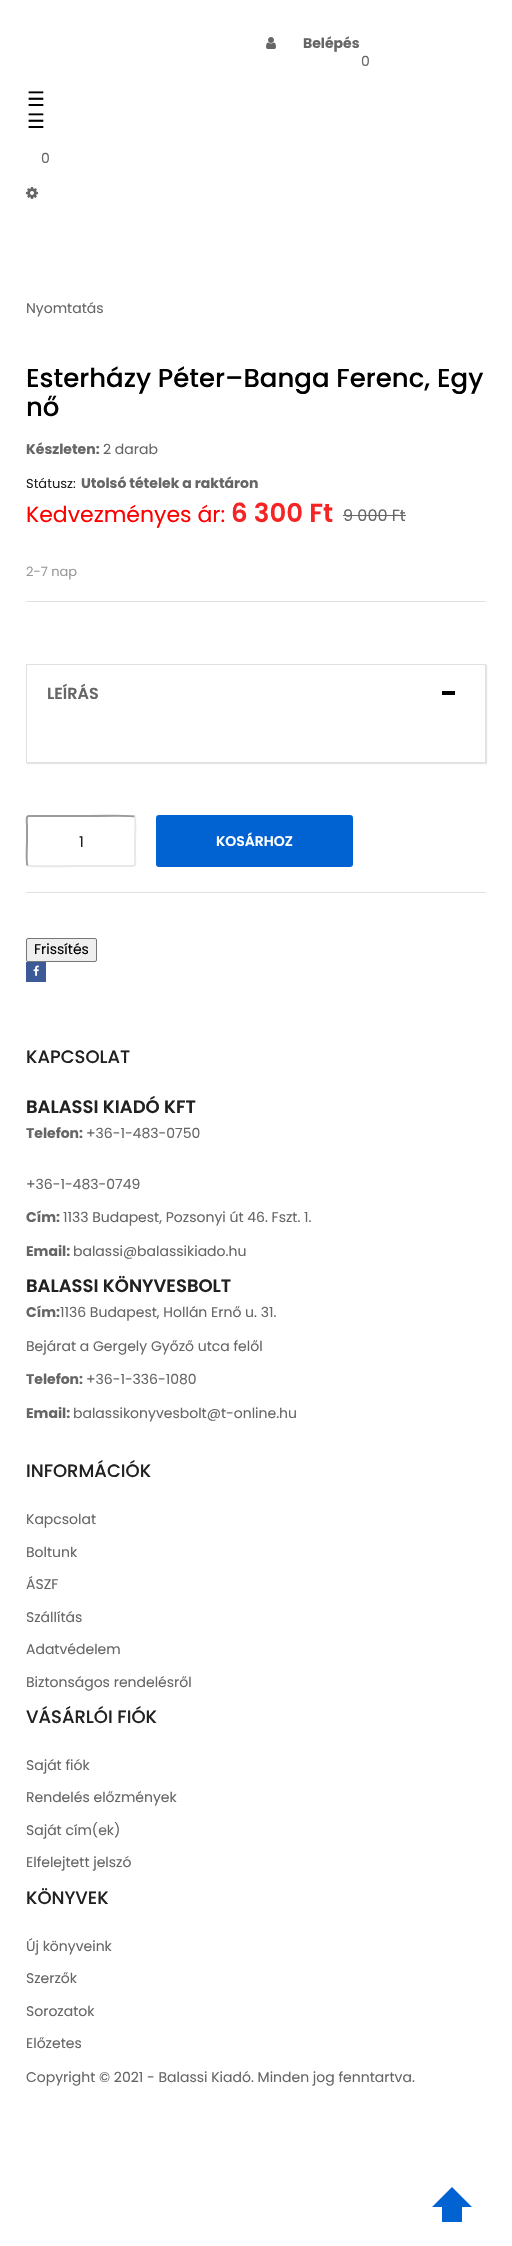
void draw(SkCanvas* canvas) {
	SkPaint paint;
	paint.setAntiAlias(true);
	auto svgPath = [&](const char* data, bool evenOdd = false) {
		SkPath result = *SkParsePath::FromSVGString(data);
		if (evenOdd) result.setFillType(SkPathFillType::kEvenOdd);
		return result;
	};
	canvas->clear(0xffffffff);
	canvas->drawImageRect(SkImages::DeferredFromEncodedData(SkData::MakeFromFileName("img1.png")), SkRect::MakeXYWH(266, 37, 10, 12), SkSamplingOptions());
	SkFont f1(fontMgr->matchFamilyStyle("Poppins", SkFontStyle::Bold()), 14);
	f1.setSubpixel(true);
	paint.setColor(0xff666666);
	canvas->drawString("Belépés", 303, 48, f1, paint);
	SkFont f2(fontMgr->matchFamilyStyle("Poppins", SkFontStyle::Normal()), 14);
	f2.setSubpixel(true);
	canvas->drawString("0", 361, 66, f2, paint);
	SkFont f3(fontMgr->matchFamilyStyle("DejaVu Sans", SkFontStyle::Normal()), 20);
	f3.setSubpixel(true);
	paint.setColor(0xff000000);
	canvas->drawString("☰", 27, 106, f3, paint);
	canvas->drawString("☰", 27, 128, f3, paint);
	paint.setColor(0xff666666);
	canvas->drawString("0", 41, 163, f2, paint);
	canvas->drawImageRect(SkImages::DeferredFromEncodedData(SkData::MakeFromFileName("img2.png")), SkRect::MakeXYWH(26, 187, 12, 12), SkSamplingOptions());
	canvas->drawString("Nyomtatás", 26, 313, f2, paint);
	SkFont f4(fontMgr->matchFamilyStyle("Poppins", SkFontStyle(500, SkFontStyle::kNormal_Width, SkFontStyle::kUpright_Slant)), 26);
	f4.setSubpixel(true);
	paint.setColor(0xff000000);
	canvas->drawString("Esterházy Péter–Banga Ferenc, Egy", 26, 387, f4, paint);
	canvas->drawString("nő", 26, 416, f4, paint);
	paint.setColor(0xff666666);
	canvas->drawString("Készleten:", 26, 454, f1, paint);
	canvas->drawString("2 darab", 103, 454, f2, paint);
	SkFont f5(fontMgr->matchFamilyStyle("Poppins", SkFontStyle::Normal()), 13);
	f5.setSubpixel(true);
	paint.setColor(0xff212121);
	canvas->drawString("Státusz:", 26, 488, f5, paint);
	paint.setColor(0xff666666);
	canvas->drawString("Utolsó tételek a raktáron", 81, 488, f1, paint);
	paint.setColor(0xffe1e1e1);
	canvas->drawRect(SkRect::MakeXYWH(26, 601, 460, 1), paint);
	SkFont f6(fontMgr->matchFamilyStyle("Poppins", SkFontStyle::Normal()), 22);
	f6.setSubpixel(true);
	paint.setColor(0xffff0000);
	canvas->drawString("Kedvezményes ár:", 26, 522, f6, paint);
	SkFont f7(fontMgr->matchFamilyStyle("Poppins", SkFontStyle(600, SkFontStyle::kNormal_Width, SkFontStyle::kUpright_Slant)), 26);
	f7.setSubpixel(true);
	paint.setColor(0xfff62424);
	canvas->drawString("6 300 Ft", 231, 522, f7, paint);
	SkFont f8(fontMgr->matchFamilyStyle("Poppins", SkFontStyle::Normal()), 16);
	f8.setSubpixel(true);
	paint.setColor(0xff666666);
	canvas->drawString("9 000 Ft", 343, 521, f8, paint);
	canvas->drawRect(SkRect::MakeXYWH(343, 515, 63, 1), paint);
	paint.setColor(0xff999999);
	canvas->drawString("2-7 nap", 26, 576, f5, paint);
	canvas->save();
	canvas->clipPath(svgPath("M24 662H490V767H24ZM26 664H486V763H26Z", true), true);
	paint.setColor(0x1a000000);
	paint.setMaskFilter(SkMaskFilter::MakeBlur(kNormal_SkBlurStyle, 0.5));
	canvas->drawRect(SkRect::MakeXYWH(27, 665, 460, 99), paint);
	paint.setMaskFilter(nullptr);
	canvas->restore();
	paint.setStroke(true);
	paint.setStrokeWidth(1);
	paint.setColor(0xffe1e1e1);
	canvas->drawRect(SkRect::MakeXYWH(26.5, 664.5, 459, 98), paint);
	SkFont f9(fontMgr->matchFamilyStyle("Poppins", SkFontStyle(600, SkFontStyle::kNormal_Width, SkFontStyle::kUpright_Slant)), 16);
	f9.setSubpixel(true);
	paint.setStroke(false);
	paint.setColor(0xff666666);
	canvas->drawString("LEÍRÁS", 47, 699, f9, paint);
	paint.setColor(0xff000000);
	canvas->drawRect(SkRect::MakeXYWH(442, 691, 13, 4), paint);
	paint.setColor(0xffe1e1e1);
	canvas->drawRect(SkRect::MakeXYWH(26, 892, 460, 1), paint);
	paint.setStroke(true);
	paint.setStrokeWidth(2);
	paint.setColor(0xffe8e8e8);
	canvas->drawPath(svgPath("M134.5 816.5C136 818.5 135 837.5 135 841V856.5C135 860 136.5 866 133 866H81C75.5 866 29 867 27.5 865.5"), paint);
	paint.setColor(0xff9b9b9b);
	canvas->drawPath(svgPath("M27.5 865.5C26 863.5 27 844.5 27 841V825.5C27 822 25.5 816 29 816H81C86.5 816 133 815 134.5 816.5"), paint);
	SkFont f10(fontMgr->matchFamilyStyle("Poppins", SkFontStyle::Normal()), 15);
	f10.setSubpixel(true);
	paint.setStroke(false);
	paint.setColor(0xff212121);
	canvas->drawString("1", 79, 847, f10, paint);
	paint.setColor(0xff0163d2);
	canvas->drawRoundRect(SkRect::MakeXYWH(156, 815, 197, 52), 3, 3, paint);
	SkFont f11(fontMgr->matchFamilyStyle("Poppins", SkFontStyle(600, SkFontStyle::kNormal_Width, SkFontStyle::kUpright_Slant)), 14);
	f11.setSubpixel(true);
	paint.setColor(0xffffffff);
	canvas->drawString("KOSÁRHOZ", 216, 846, f11, paint);
	paint.setColor(0xffefefef);
	canvas->drawRoundRect(SkRect::MakeXYWH(26.5, 938.5, 70, 23), 1.5, 1.5, paint);
	paint.setStroke(true);
	paint.setStrokeWidth(1);
	paint.setColor(0xff767676);
	canvas->drawRoundRect(SkRect::MakeXYWH(26.5, 938.5, 70, 23), 1.5, 1.5, paint);
	paint.setStroke(false);
	paint.setColor(0xff000000);
	canvas->drawString("Frissítés", 34, 954, f2, paint);
	paint.setColor(0xff3c5a98);
	canvas->drawRect(SkRect::MakeXYWH(26, 962, 20, 20), paint);
	canvas->drawImageRect(SkImages::DeferredFromEncodedData(SkData::MakeFromFileName("img3.png")), SkRect::MakeXYWH(33, 965, 6, 11), SkSamplingOptions());
	SkFont f12(fontMgr->matchFamilyStyle("Poppins", SkFontStyle(500, SkFontStyle::kNormal_Width, SkFontStyle::kUpright_Slant)), 18);
	f12.setSubpixel(true);
	paint.setColor(0xff212121);
	canvas->drawString("KAPCSOLAT", 26, 1063, f12, paint);
	SkFont f13(fontMgr->matchFamilyStyle("Poppins", SkFontStyle(600, SkFontStyle::kNormal_Width, SkFontStyle::kUpright_Slant)), 18);
	f13.setSubpixel(true);
	canvas->drawString("BALASSI KIADÓ KFT", 26, 1113, f13, paint);
	paint.setColor(0xff666666);
	canvas->drawString("Telefon:", 26, 1138, f1, paint);
	canvas->drawString("+36-1-483-0750", 86, 1138, f2, paint);
	canvas->drawString("+36-1-483-0749", 26, 1189, f2, paint);
	canvas->drawString("Cím:", 26, 1222, f1, paint);
	canvas->drawString("1133 Budapest, Pozsonyi út 46. Fszt. 1.", 63, 1222, f2, paint);
	canvas->drawString("Email:", 26, 1256, f1, paint);
	canvas->drawString("balassi@balassikiado.hu", 73, 1256, f2, paint);
	paint.setColor(0xff212121);
	canvas->drawString("BALASSI KÖNYVESBOLT", 26, 1292, f13, paint);
	paint.setColor(0xff666666);
	canvas->drawString("Cím:", 26, 1317, f1, paint);
	canvas->drawString("1136 Budapest, Hollán Ernő u. 31.", 60, 1317, f2, paint);
	canvas->drawString("Bejárat a Gergely Győző utca felől", 26, 1351, f2, paint);
	canvas->drawString("Telefon:", 26, 1384, f1, paint);
	canvas->drawString("+36-1-336-1080", 86, 1384, f2, paint);
	canvas->drawString("Email:", 26, 1418, f1, paint);
	canvas->drawString("balassikonyvesbolt@t-online.hu", 73, 1418, f2, paint);
	paint.setColor(0xff212121);
	canvas->drawString("INFORMÁCIÓK", 26, 1477, f12, paint);
	paint.setColor(0xff666666);
	canvas->drawString("Kapcsolat", 26, 1524, f2, paint);
	canvas->drawString("Boltunk", 26, 1557, f2, paint);
	canvas->drawString("ÁSZF", 26, 1589, f2, paint);
	canvas->drawString("Szállítás", 26, 1622, f2, paint);
	canvas->drawString("Adatvédelem", 26, 1654, f2, paint);
	canvas->drawString("Biztonságos rendelésről", 26, 1687, f2, paint);
	paint.setColor(0xff212121);
	canvas->drawString("VÁSÁRLÓI FIÓK", 26, 1723, f12, paint);
	paint.setColor(0xff666666);
	canvas->drawString("Saját fiók", 26, 1770, f2, paint);
	canvas->drawString("Rendelés előzmények", 26, 1802, f2, paint);
	canvas->drawString("Saját cím(ek)", 26, 1835, f2, paint);
	canvas->drawString("Elfelejtett jelszó", 26, 1867, f2, paint);
	paint.setColor(0xff212121);
	canvas->drawString("KÖNYVEK", 26, 1904, f12, paint);
	paint.setColor(0xff666666);
	canvas->drawString("Új könyveink", 26, 1951, f2, paint);
	canvas->drawString("Szerzők", 26, 1983, f2, paint);
	canvas->drawString("Sorozatok", 26, 2016, f2, paint);
	canvas->drawString("Előzetes", 26, 2048, f2, paint);
	canvas->drawString("Copyright © 2021 - Balassi Kiadó. Minden jog fenntartva.", 26, 2082, f2, paint);
	paint.setColor(0xff0163d2);
	canvas->drawRect(SkRect::MakeXYWH(442, 2207, 20, 15), paint);
	canvas->drawPath(svgPath("M472 2207H432L452 2187Z"), paint);
}
